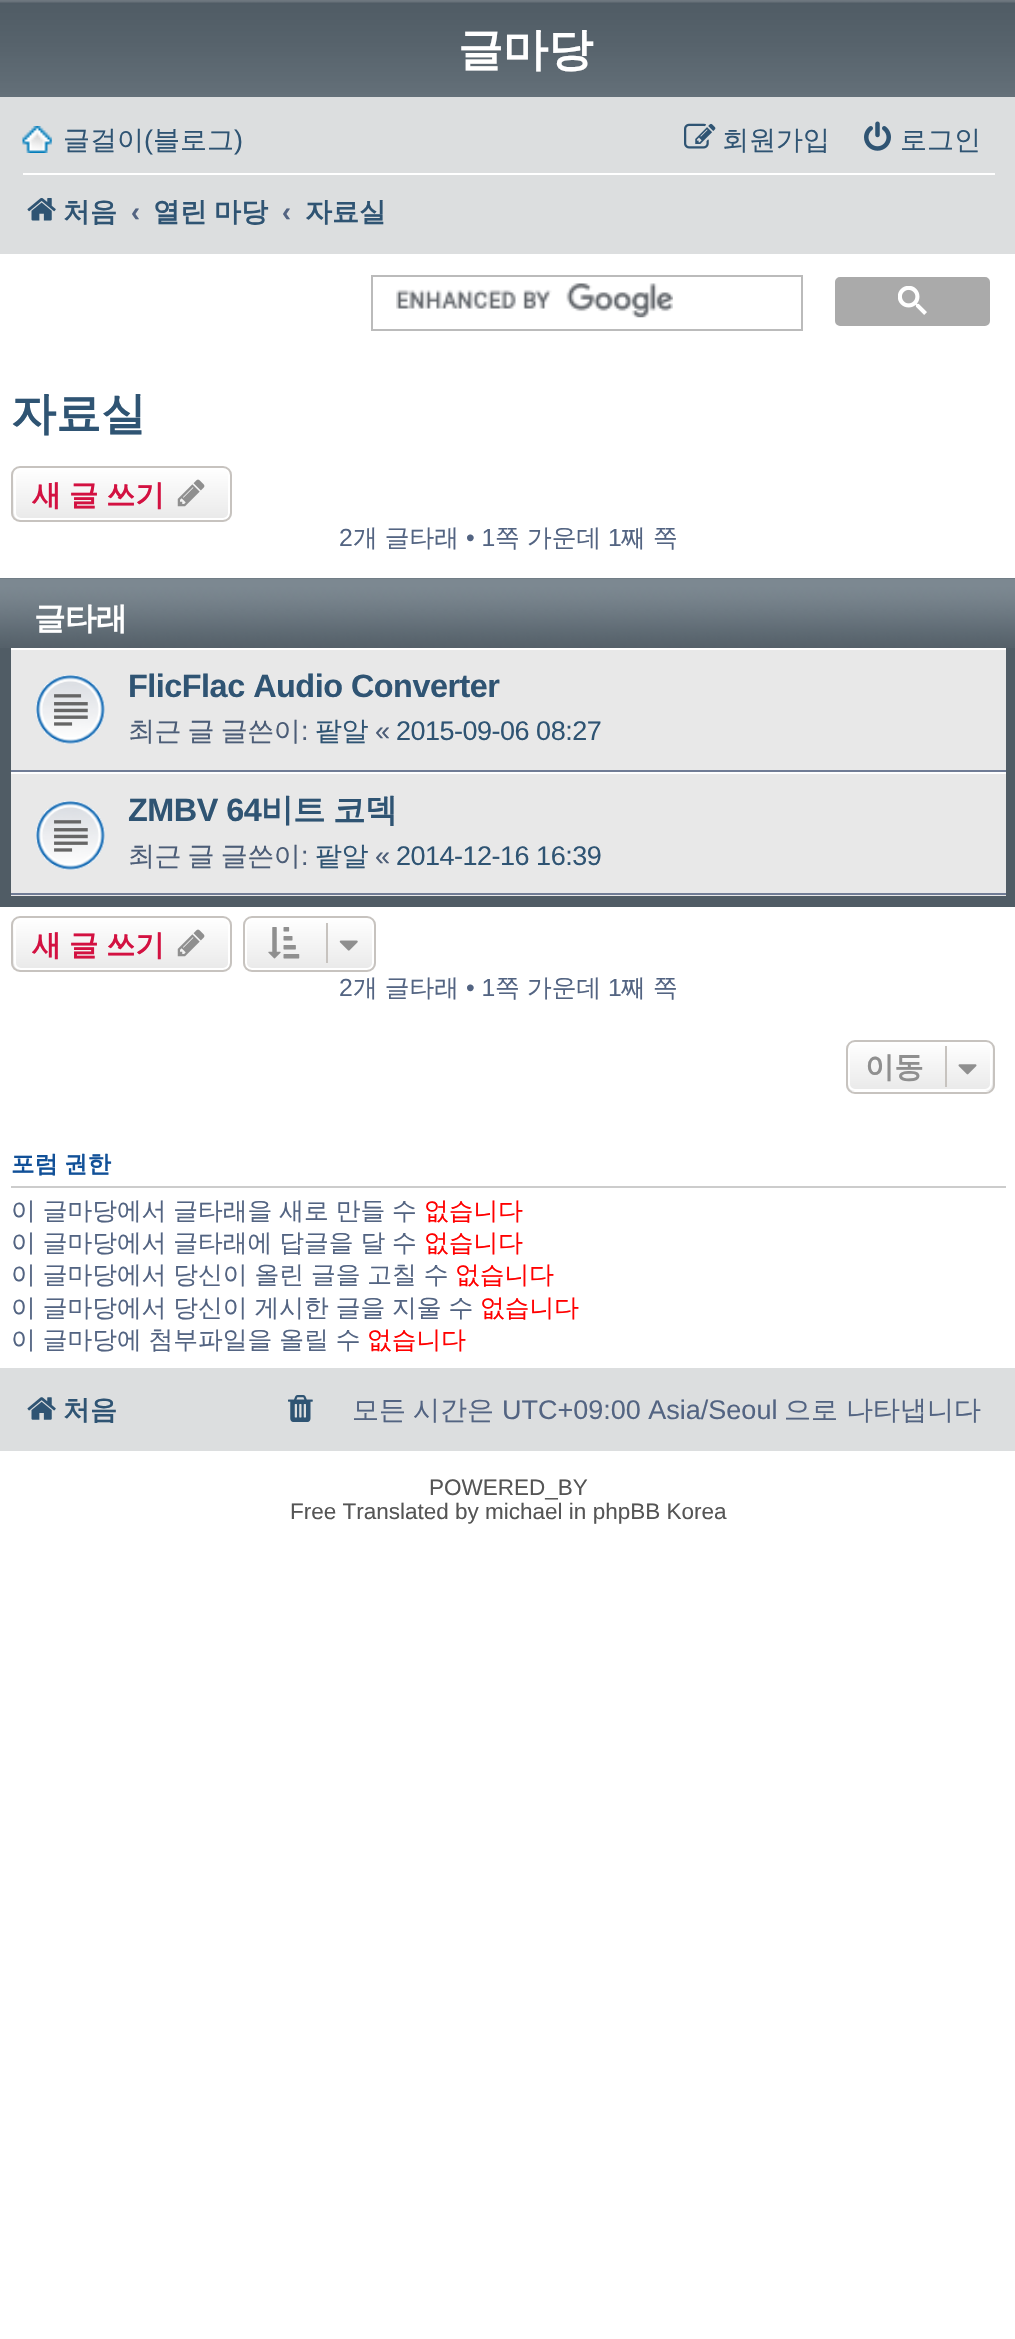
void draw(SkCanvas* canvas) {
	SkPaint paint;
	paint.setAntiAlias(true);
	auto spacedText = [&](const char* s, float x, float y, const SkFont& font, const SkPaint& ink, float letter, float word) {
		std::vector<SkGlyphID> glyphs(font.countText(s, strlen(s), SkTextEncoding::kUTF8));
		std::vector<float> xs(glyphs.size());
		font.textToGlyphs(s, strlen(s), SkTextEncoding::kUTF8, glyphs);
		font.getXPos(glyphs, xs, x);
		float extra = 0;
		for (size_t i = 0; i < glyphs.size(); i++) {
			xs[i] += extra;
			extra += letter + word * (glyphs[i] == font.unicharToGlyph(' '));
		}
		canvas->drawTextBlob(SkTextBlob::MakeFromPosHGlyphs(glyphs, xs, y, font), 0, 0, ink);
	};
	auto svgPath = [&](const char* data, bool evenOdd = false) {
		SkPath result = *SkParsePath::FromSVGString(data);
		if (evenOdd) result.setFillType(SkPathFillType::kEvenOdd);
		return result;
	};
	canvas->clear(0xffffffff);
	canvas->drawImageRect(SkImages::DeferredFromEncodedData(SkData::MakeFromFileName("img1.png")), SkRect::MakeXYWH(0, 0, 1015, 97), SkSamplingOptions());
	SkFont f1(fontMgr->matchFamilyStyle("WenQuanYi Zen Hei", SkFontStyle::Bold()), 45);
	f1.setSubpixel(true);
	paint.setColor(0xffffffff);
	canvas->drawString("글마당", 458, 65, f1, paint);
	paint.setColor(0xffdcdedf);
	canvas->drawRect(SkRect::MakeXYWH(0, 97, 1015, 157), paint);
	canvas->drawImageRect(SkImages::DeferredFromEncodedData(SkData::MakeFromFileName("img2.png")), SkRect::MakeXYWH(22, 126, 30, 27), SkSamplingOptions());
	SkFont f2(fontMgr->matchFamilyStyle("WenQuanYi Zen Hei", SkFontStyle(500, SkFontStyle::kNormal_Width, SkFontStyle::kUpright_Slant)), 27);
	f2.setSubpixel(true);
	paint.setColor(0xff2f5473);
	canvas->drawString("글걸이", 63, 149, f2, paint);
	SkFont f3(fontMgr->matchFamilyStyle("Liberation Sans", SkFontStyle::Normal()), 27);
	f3.setSubpixel(true);
	canvas->drawString("(", 144, 149, f3, paint);
	canvas->drawString("블로그", 153, 149, f2, paint);
	canvas->drawString(")", 234, 149, f3, paint);
	canvas->drawImageRect(SkImages::DeferredFromEncodedData(SkData::MakeFromFileName("img3.png")), SkRect::MakeXYWH(684, 123, 32, 26), SkSamplingOptions());
	canvas->drawString("회원가입", 722, 149, f2, paint);
	canvas->drawImageRect(SkImages::DeferredFromEncodedData(SkData::MakeFromFileName("img4.png")), SkRect::MakeXYWH(864, 121, 27, 30), SkSamplingOptions());
	canvas->drawString("로그인", 900, 149, f2, paint);
	paint.setColor(0xffffffff);
	canvas->drawRect(SkRect::MakeXYWH(23, 173, 972, 2), paint);
	canvas->drawImageRect(SkImages::DeferredFromEncodedData(SkData::MakeFromFileName("img5.png")), SkRect::MakeXYWH(27, 198, 29, 23), SkSamplingOptions());
	SkFont f4(fontMgr->matchFamilyStyle("WenQuanYi Zen Hei", SkFontStyle::Bold()), 27);
	f4.setSubpixel(true);
	paint.setColor(0xff2f5473);
	canvas->drawString("처음", 63, 221, f4, paint);
	SkFont f5(fontMgr->matchFamilyStyle("Liberation Sans", SkFontStyle::Bold()), 27);
	f5.setSubpixel(true);
	paint.setColor(0xff536482);
	canvas->drawString("‹", 131, 221, f5, paint);
	paint.setColor(0xff2f5473);
	spacedText("열린 마당", 153, 221, f4, paint, 0, -1);
	paint.setColor(0xff536482);
	canvas->drawString("‹", 282, 221, f5, paint);
	paint.setColor(0xff2f5473);
	canvas->drawString("자료실", 305, 221, f4, paint);
	paint.setStroke(true);
	paint.setStrokeWidth(2);
	paint.setColor(0xffbbbbbb);
	canvas->drawRect(SkRect::MakeXYWH(372, 276, 430, 54), paint);
	canvas->drawImageRect(SkImages::DeferredFromEncodedData(SkData::MakeFromFileName("img6.png")), SkRect::MakeXYWH(396, 283, 277, 35), SkSamplingOptions());
	paint.setStroke(false);
	paint.setColor(0xffaaaaaa);
	canvas->drawRoundRect(SkRect::MakeXYWH(836, 278, 153, 47), 4, 4, paint);
	paint.setStroke(true);
	canvas->drawRoundRect(SkRect::MakeXYWH(836, 278, 153, 47), 4, 4, paint);
	canvas->drawImageRect(SkImages::DeferredFromEncodedData(SkData::MakeFromFileName("img7.png")), SkRect::MakeXYWH(898, 286, 29, 29), SkSamplingOptions());
	paint.setStroke(false);
	paint.setColor(0xff2f5473);
	canvas->drawString("자료실", 11, 429, f1, paint);
	canvas->save();
	canvas->clipPath(svgPath("M20 466H223C228 466 232 470 232 475V513C232 518 228 522 223 522H20C15 522 11 518 11 513V475C11 470 15 466 20 466Z"), true);
	{
		const SkColor colors[] = {0xffffffff, 0xffe9e9e9};
		const float stops[] = {0, 1};
		const SkPoint ends[] = {{122, 468}, {122, 520}};
		paint.setShader(SkGradientShader::MakeLinear(ends, colors, stops, 2, SkTileMode::kClamp));
		paint.setAlpha(255);
	}
	canvas->drawRect(SkRect::MakeXYWH(11, 468, 221, 52), paint);
	canvas->restore();
	paint.setStroke(true);
	paint.setShader(nullptr);
	paint.setColor(0xffffffff);
	canvas->drawRoundRect(SkRect::MakeXYWH(15, 469, 214, 50), 6, 6, paint);
	paint.setColor(0xffc7c3bf);
	canvas->drawRoundRect(SkRect::MakeXYWH(12, 467, 219, 54), 8, 8, paint);
	SkFont f6(fontMgr->matchFamilyStyle("WenQuanYi Zen Hei", SkFontStyle::Bold()), 29.25);
	f6.setSubpixel(true);
	paint.setStroke(false);
	paint.setColor(0xffd31141);
	spacedText("새 글 쓰기", 32, 505, f6, paint, 0, -1);
	canvas->drawImageRect(SkImages::DeferredFromEncodedData(SkData::MakeFromFileName("img8.png")), SkRect::MakeXYWH(177, 479, 28, 28), SkSamplingOptions());
	SkFont f7(fontMgr->matchFamilyStyle("Liberation Sans", SkFontStyle::Normal()), 24.75);
	f7.setSubpixel(true);
	paint.setColor(0xff536482);
	canvas->drawString("2", 339, 546, f7, paint);
	SkFont f8(fontMgr->matchFamilyStyle("WenQuanYi Zen Hei", SkFontStyle(500, SkFontStyle::kNormal_Width, SkFontStyle::kUpright_Slant)), 24.75);
	f8.setSubpixel(true);
	spacedText("개 글타래", 353, 546, f8, paint, 0, -0.5);
	canvas->drawString("• 1", 466, 546, f7, paint);
	canvas->drawString("쪽", 495, 546, f8, paint);
	canvas->drawString("가운데", 527, 546, f8, paint);
	canvas->drawString("1", 608, 546, f7, paint);
	canvas->drawString("째", 621, 546, f8, paint);
	canvas->drawString("쪽", 653, 546, f8, paint);
	paint.setColor(0xff505c65);
	canvas->drawRect(SkRect::MakeXYWH(0, 578, 1015, 329), paint);
	canvas->drawImageRect(SkImages::DeferredFromEncodedData(SkData::MakeFromFileName("img9.png")), SkRect::MakeXYWH(0, 578, 1015, 70), SkSamplingOptions());
	SkFont f9(fontMgr->matchFamilyStyle("WenQuanYi Zen Hei", SkFontStyle::Bold()), 31.5);
	f9.setSubpixel(true);
	paint.setColor(0xffffffff);
	spacedText("글타래", 34, 629, f9, paint, -0.5, 0);
	paint.setColor(0xffe8e8e8);
	canvas->drawRect(SkRect::MakeXYWH(11, 650, 995, 120), paint);
	paint.setColor(0xffffffff);
	canvas->drawRect(SkRect::MakeXYWH(11, 648, 995, 2), paint);
	paint.setColor(0xff707c95);
	canvas->drawRect(SkRect::MakeXYWH(11, 770, 995, 2), paint);
	canvas->drawImageRect(SkImages::DeferredFromEncodedData(SkData::MakeFromFileName("img10.png")), SkRect::MakeXYWH(36, 675, 69, 69), SkSamplingOptions());
	SkFont f10(fontMgr->matchFamilyStyle("Liberation Sans", SkFontStyle::Bold()), 32.4);
	f10.setSubpixel(true);
	paint.setColor(0xff2f5473);
	spacedText("FlicFlac Audio Converter", 128, 697, f10, paint, -0.5, 0);
	paint.setColor(0xff4c5d77);
	spacedText("최근 글 글쓴이", 128, 740, f2, paint, -0.5, -1);
	spacedText(":", 301, 740, f3, paint, -0.5, 0);
	paint.setColor(0xff2f5473);
	spacedText("팥알", 315, 740, f2, paint, -0.5, 0);
	paint.setColor(0xff4c5d77);
	spacedText("«", 375, 740, f3, paint, -0.5, 0);
	paint.setColor(0xff2f5473);
	spacedText("2015-09-06 08:27", 396, 740, f3, paint, -0.5, 0);
	paint.setColor(0xffe8e8e8);
	canvas->drawRect(SkRect::MakeXYWH(11, 774, 995, 122), paint);
	paint.setColor(0xffffffff);
	canvas->drawRect(SkRect::MakeXYWH(11, 772, 995, 2), paint);
	paint.setColor(0xff707c95);
	canvas->drawRect(SkRect::MakeXYWH(11, 893, 995, 2), paint);
	canvas->drawImageRect(SkImages::DeferredFromEncodedData(SkData::MakeFromFileName("img11.png")), SkRect::MakeXYWH(36, 801, 69, 69), SkSamplingOptions());
	paint.setColor(0xff2f5473);
	spacedText("ZMBV 64", 128, 821, f10, paint, -0.5, 0);
	SkFont f11(fontMgr->matchFamilyStyle("WenQuanYi Zen Hei", SkFontStyle::Bold()), 32.4);
	f11.setSubpixel(true);
	spacedText("비트", 261, 821, f11, paint, -0.5, 0);
	spacedText("코덱", 333, 821, f11, paint, -0.5, 0);
	paint.setColor(0xff4c5d77);
	spacedText("최근 글 글쓴이", 128, 865, f2, paint, -0.5, -1);
	spacedText(":", 301, 865, f3, paint, -0.5, 0);
	paint.setColor(0xff2f5473);
	spacedText("팥알", 315, 865, f2, paint, -0.5, 0);
	paint.setColor(0xff4c5d77);
	spacedText("«", 375, 865, f3, paint, -0.5, 0);
	paint.setColor(0xff2f5473);
	spacedText("2014-12-16 16:39", 396, 865, f3, paint, -0.5, 0);
	canvas->save();
	canvas->clipPath(svgPath("M20 916H223C228 916 232 920 232 925V963C232 968 228 972 223 972H20C15 972 11 968 11 963V925C11 920 15 916 20 916Z"), true);
	{
		const SkColor colors[] = {0xffffffff, 0xffe9e9e9};
		const float stops[] = {0, 1};
		const SkPoint ends[] = {{122, 918}, {122, 970}};
		paint.setShader(SkGradientShader::MakeLinear(ends, colors, stops, 2, SkTileMode::kClamp));
		paint.setAlpha(255);
	}
	canvas->drawRect(SkRect::MakeXYWH(11, 918, 221, 52), paint);
	canvas->restore();
	paint.setStroke(true);
	paint.setShader(nullptr);
	paint.setColor(0xffffffff);
	canvas->drawRoundRect(SkRect::MakeXYWH(15, 919, 214, 50), 6, 6, paint);
	paint.setColor(0xffc7c3bf);
	canvas->drawRoundRect(SkRect::MakeXYWH(12, 917, 219, 54), 8, 8, paint);
	paint.setStroke(false);
	paint.setColor(0xffd31141);
	spacedText("새 글 쓰기", 32, 955, f6, paint, 0, -1);
	canvas->drawImageRect(SkImages::DeferredFromEncodedData(SkData::MakeFromFileName("img8.png")), SkRect::MakeXYWH(177, 929, 28, 28), SkSamplingOptions());
	canvas->save();
	canvas->clipPath(svgPath("M252 916H367C372 916 376 920 376 925V963C376 968 372 972 367 972H252C247 972 243 968 243 963V925C243 920 247 916 252 916Z"), true);
	{
		const SkColor colors[] = {0xffffffff, 0xffe9e9e9};
		const float stops[] = {0, 1};
		const SkPoint ends[] = {{309, 918}, {309, 970}};
		paint.setShader(SkGradientShader::MakeLinear(ends, colors, stops, 2, SkTileMode::kClamp));
		paint.setAlpha(255);
	}
	canvas->drawRect(SkRect::MakeXYWH(243, 918, 133, 52), paint);
	canvas->restore();
	paint.setStroke(true);
	paint.setShader(nullptr);
	paint.setColor(0xffffffff);
	canvas->drawRoundRect(SkRect::MakeXYWH(246, 919, 127, 50), 6, 6, paint);
	paint.setColor(0xffc7c3bf);
	canvas->drawRoundRect(SkRect::MakeXYWH(244, 917, 131, 54), 8, 8, paint);
	canvas->drawImageRect(SkImages::DeferredFromEncodedData(SkData::MakeFromFileName("img12.png")), SkRect::MakeXYWH(268, 927, 32, 32), SkSamplingOptions());
	paint.setStroke(false);
	canvas->drawRect(SkRect::MakeXYWH(326, 923, 2, 40), paint);
	canvas->drawImageRect(SkImages::DeferredFromEncodedData(SkData::MakeFromFileName("img13.png")), SkRect::MakeXYWH(339, 940, 19, 11), SkSamplingOptions());
	paint.setColor(0xff536482);
	canvas->drawString("2", 339, 996, f7, paint);
	spacedText("개 글타래", 353, 996, f8, paint, 0, -0.5);
	canvas->drawString("• 1", 466, 996, f7, paint);
	canvas->drawString("쪽", 495, 996, f8, paint);
	canvas->drawString("가운데", 527, 996, f8, paint);
	canvas->drawString("1", 608, 996, f7, paint);
	canvas->drawString("째", 621, 996, f8, paint);
	canvas->drawString("쪽", 653, 996, f8, paint);
	canvas->save();
	canvas->clipPath(svgPath("M855 1040H986C991 1040 995 1044 995 1049V1085C995 1090 991 1094 986 1094H855C850 1094 846 1090 846 1085V1049C846 1044 850 1040 855 1040Z"), true);
	{
		const SkColor colors[] = {0xffffffff, 0xffe9e9e9};
		const float stops[] = {0, 1};
		const SkPoint ends[] = {{920, 1042}, {920, 1091}};
		paint.setShader(SkGradientShader::MakeLinear(ends, colors, stops, 2, SkTileMode::kClamp));
		paint.setAlpha(255);
	}
	canvas->drawRect(SkRect::MakeXYWH(846, 1042, 149, 49), paint);
	canvas->restore();
	paint.setStroke(true);
	paint.setShader(nullptr);
	paint.setColor(0xffffffff);
	canvas->drawRoundRect(SkRect::MakeXYWH(849, 1043, 142, 47), 6, 6, paint);
	paint.setColor(0xffc7c3bf);
	canvas->drawRoundRect(SkRect::MakeXYWH(847, 1041, 147, 52), 8, 8, paint);
	paint.setStroke(false);
	paint.setColor(0xff8f8f8f);
	canvas->drawString("이동", 865, 1077, f6, paint);
	paint.setColor(0xffc7c3bf);
	canvas->drawRect(SkRect::MakeXYWH(945, 1046, 2, 41), paint);
	canvas->drawImageRect(SkImages::DeferredFromEncodedData(SkData::MakeFromFileName("img14.png")), SkRect::MakeXYWH(958, 1064, 19, 11), SkSamplingOptions());
	paint.setColor(0xffcccccc);
	canvas->drawRect(SkRect::MakeXYWH(11, 1186, 995, 2), paint);
	SkFont f12(fontMgr->matchFamilyStyle("WenQuanYi Zen Hei", SkFontStyle::Bold()), 23.5);
	f12.setSubpixel(true);
	paint.setColor(0xff115098);
	spacedText("포럼 권한", 11, 1172, f12, paint, 0, -1);
	paint.setColor(0xff536482);
	spacedText("이 글마당에서 글타래을 새로 만들 수", 11, 1219, f8, paint, 0, -0.5);
	paint.setColor(0xffff0000);
	canvas->drawString("없습니다", 424, 1219, f8, paint);
	paint.setColor(0xff536482);
	spacedText("이 글마당에서 글타래에 답글을 달 수", 11, 1251, f8, paint, 0, -0.5);
	paint.setColor(0xffff0000);
	canvas->drawString("없습니다", 424, 1251, f8, paint);
	paint.setColor(0xff536482);
	spacedText("이 글마당에서 당신이 올린 글을 고칠 수", 11, 1283, f8, paint, 0, -0.5);
	paint.setColor(0xffff0000);
	canvas->drawString("없습니다", 455, 1283, f8, paint);
	paint.setColor(0xff536482);
	spacedText("이 글마당에서 당신이 게시한 글을 지울 수", 11, 1316, f8, paint, 0, -0.5);
	paint.setColor(0xffff0000);
	canvas->drawString("없습니다", 480, 1316, f8, paint);
	paint.setColor(0xff536482);
	spacedText("이 글마당에 첨부파일을 올릴 수", 11, 1348, f8, paint, 0, -0.5);
	paint.setColor(0xffff0000);
	canvas->drawString("없습니다", 367, 1348, f8, paint);
	paint.setColor(0xffdcdedf);
	canvas->drawRect(SkRect::MakeXYWH(0, 1368, 1015, 83), paint);
	canvas->drawImageRect(SkImages::DeferredFromEncodedData(SkData::MakeFromFileName("img15.png")), SkRect::MakeXYWH(27, 1397, 29, 23), SkSamplingOptions());
	paint.setColor(0xff2f5473);
	canvas->drawString("처음", 63, 1419, f4, paint);
	canvas->drawImageRect(SkImages::DeferredFromEncodedData(SkData::MakeFromFileName("img16.png")), SkRect::MakeXYWH(288, 1395, 25, 27), SkSamplingOptions());
	paint.setColor(0xff536482);
	canvas->drawString("모든", 352, 1419, f2, paint);
	canvas->drawString("시간은", 413, 1419, f2, paint);
	canvas->drawString("UTC+09:00 Asia/Seoul", 502, 1419, f3, paint);
	canvas->drawString("으로", 784, 1419, f2, paint);
	canvas->drawString("나타냅니다", 846, 1419, f2, paint);
	SkFont f13(fontMgr->matchFamilyStyle("Liberation Sans", SkFontStyle::Normal()), 22.5);
	f13.setSubpixel(true);
	paint.setColor(0xff555555);
	canvas->drawString("POWERED_BY", 429, 1495, f13, paint);
	canvas->drawString("Free Translated by michael in phpBB Korea", 290, 1519, f13, paint);
}
